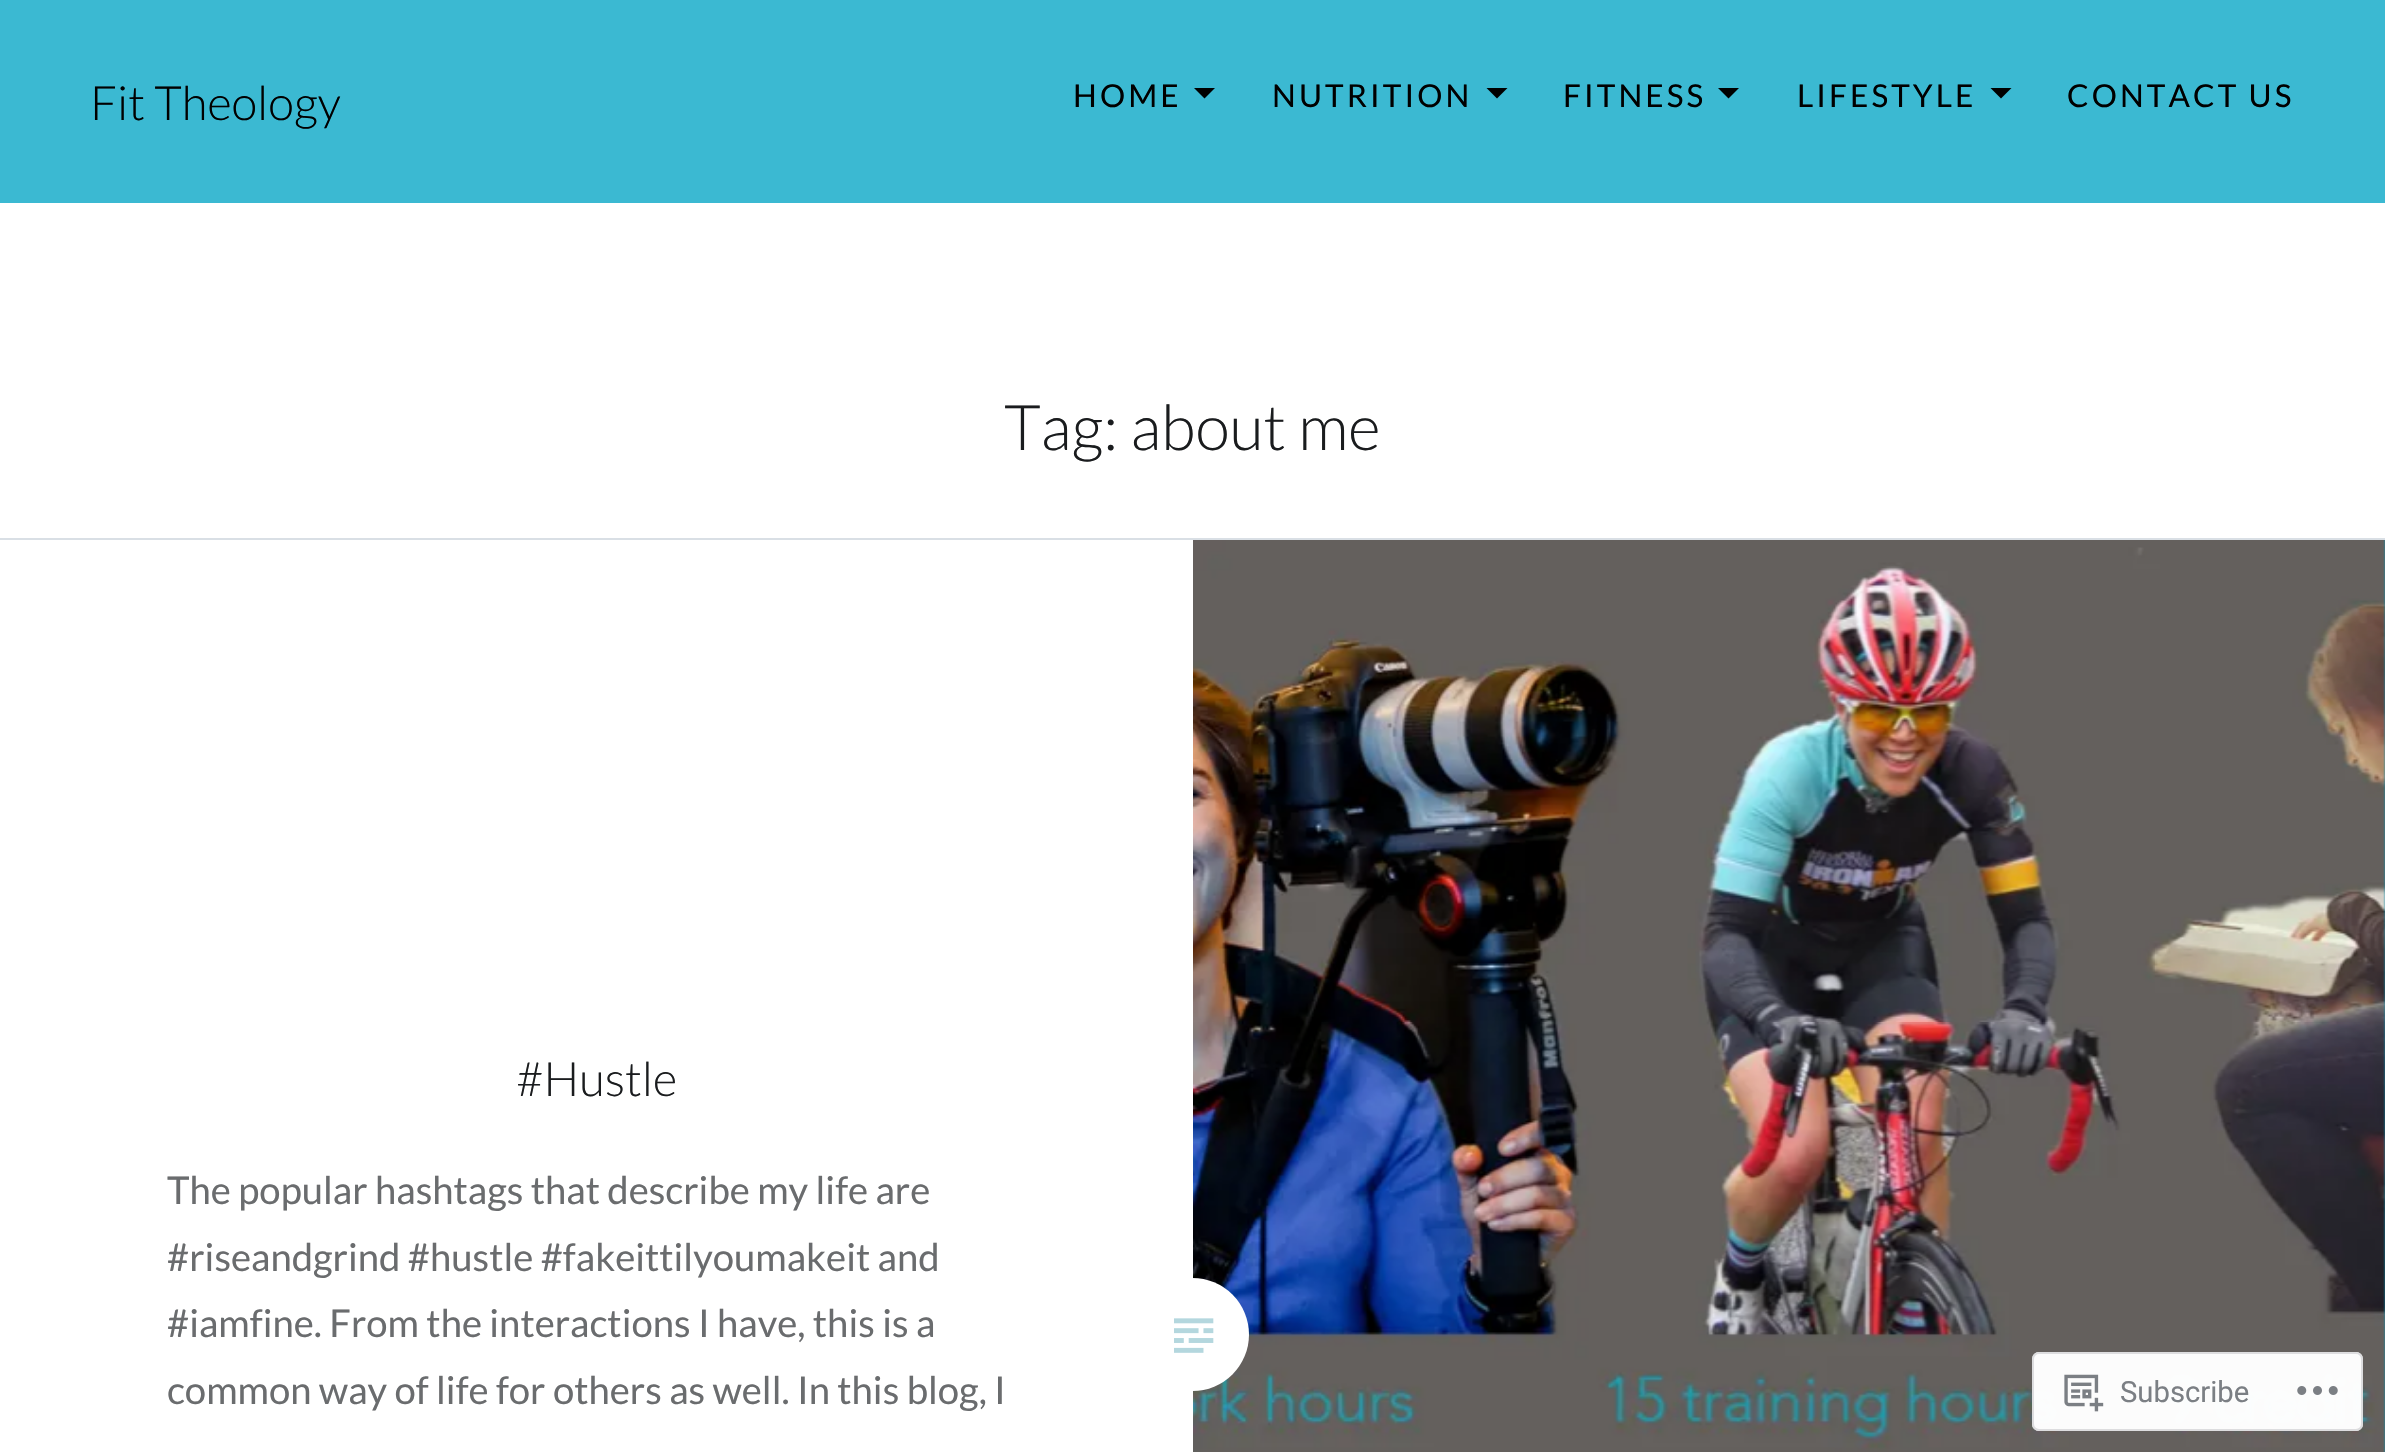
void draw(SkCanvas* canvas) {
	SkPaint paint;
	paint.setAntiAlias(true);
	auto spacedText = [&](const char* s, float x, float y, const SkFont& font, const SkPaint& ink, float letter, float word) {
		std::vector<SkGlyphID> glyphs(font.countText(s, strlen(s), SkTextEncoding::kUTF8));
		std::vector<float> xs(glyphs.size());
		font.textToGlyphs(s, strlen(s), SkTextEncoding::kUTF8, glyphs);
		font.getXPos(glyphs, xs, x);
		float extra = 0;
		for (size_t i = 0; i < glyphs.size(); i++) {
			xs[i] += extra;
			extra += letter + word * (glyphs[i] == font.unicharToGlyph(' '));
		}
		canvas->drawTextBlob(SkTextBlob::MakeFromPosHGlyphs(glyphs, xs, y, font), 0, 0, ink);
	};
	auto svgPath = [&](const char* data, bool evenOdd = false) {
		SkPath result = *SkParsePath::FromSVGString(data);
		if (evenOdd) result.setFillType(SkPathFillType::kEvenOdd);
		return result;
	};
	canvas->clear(0xffffffff);
	paint.setColor(0xff3bb9d2);
	canvas->drawRect(SkRect::MakeXYWH(0, 0, 2385, 203), paint);
	SkFont f1(fontMgr->matchFamilyStyle("Lato", SkFontStyle(300, SkFontStyle::kNormal_Width, SkFontStyle::kUpright_Slant)), 47.25);
	f1.setSubpixel(true);
	paint.setColor(0xff000000);
	canvas->drawString("Fit Theology", 90, 120, f1, paint);
	SkFont f2(fontMgr->matchFamilyStyle("Lato", SkFontStyle::Normal()), 31.5);
	f2.setSubpixel(true);
	spacedText("HOME", 1073, 107, f2, paint, 3.1, 0);
	canvas->drawPath(svgPath("M1194 88H1215L1204.5 98.5Z"), paint);
	spacedText("NUTRITION", 1272, 107, f2, paint, 3.1, 0);
	canvas->drawPath(svgPath("M1486.5 88H1507.5L1497 98.5Z"), paint);
	spacedText("FITNESS", 1563, 107, f2, paint, 3.1, 0);
	canvas->drawPath(svgPath("M1718 88H1739L1728.5 98.5Z"), paint);
	spacedText("LIFESTYLE", 1797, 107, f2, paint, 3.1, 0);
	canvas->drawPath(svgPath("M1990.5 88H2011.5L2001 98.5Z"), paint);
	spacedText("CONTACT US", 2067, 107, f2, paint, 3.1, 0);
	paint.setColor(0xffd9dfe5);
	canvas->drawRect(SkRect::MakeXYWH(0, 538, 2385, 2), paint);
	SkFont f3(fontMgr->matchFamilyStyle("Lato", SkFontStyle(300, SkFontStyle::kNormal_Width, SkFontStyle::kUpright_Slant)), 63);
	f3.setSubpixel(true);
	paint.setColor(0xff1a1c1e);
	canvas->drawString("Tag: about me", 1004, 450, f3, paint);
	canvas->drawString("#Hustle", 516, 1096, f1, paint);
	SkFont f4(fontMgr->matchFamilyStyle("Lato", SkFontStyle::Normal()), 38.25);
	f4.setSubpixel(true);
	paint.setColor(0xff6a6c6e);
	canvas->drawString("The popular hashtags that describe my life are", 167, 1204, f4, paint);
	canvas->drawString("#riseandgrind #hustle #fakeittilyoumakeit and", 167, 1271, f4, paint);
	canvas->drawString("#iamfine. From the interactions I have, this is a", 167, 1337, f4, paint);
	canvas->drawString("common way of life for others as well. In this blog, I", 167, 1404, f4, paint);
	paint.setColor(0xff0992ae);
	canvas->drawRect(SkRect::MakeXYWH(2383, 540, 2, 912), paint);
	canvas->drawImageRect(SkImages::DeferredFromEncodedData(SkData::MakeFromFileName("img2.png")), SkRect::MakeXYWH(1193, 540, 1192, 912), SkSamplingOptions());
	paint.setColor(0xffffffff);
	canvas->drawCircle(1192.5, 1334.5, 56.5, paint);
	canvas->drawImageRect(SkImages::DeferredFromEncodedData(SkData::MakeFromFileName("img1.png")), SkRect::MakeXYWH(1174, 1318, 40, 35), SkSamplingOptions());
	paint.setColor(0xfaffffff);
	canvas->drawRoundRect(SkRect::MakeXYWH(2032, 1352, 331, 79), 7, 7, paint);
	paint.setStroke(true);
	paint.setStrokeWidth(2);
	paint.setColor(0xfadcdcde);
	canvas->drawRoundRect(SkRect::MakeXYWH(2033, 1353, 329, 77), 6, 6, paint);
	canvas->drawImageRect(SkImages::DeferredFromEncodedData(SkData::MakeFromFileName("img3.png")), SkRect::MakeXYWH(2064, 1374, 40, 38), SkSamplingOptions());
	SkFont f5(fontMgr->matchFamilyStyle("Roboto", SkFontStyle::Normal()), 29.25);
	f5.setSubpixel(true);
	paint.setStroke(false);
	paint.setColor(0xff7b7f84);
	canvas->drawString("Subscribe", 2120, 1402, f5, paint);
	canvas->drawImageRect(SkImages::DeferredFromEncodedData(SkData::MakeFromFileName("img4.png")), SkRect::MakeXYWH(2297, 1386, 41, 9), SkSamplingOptions());
}
